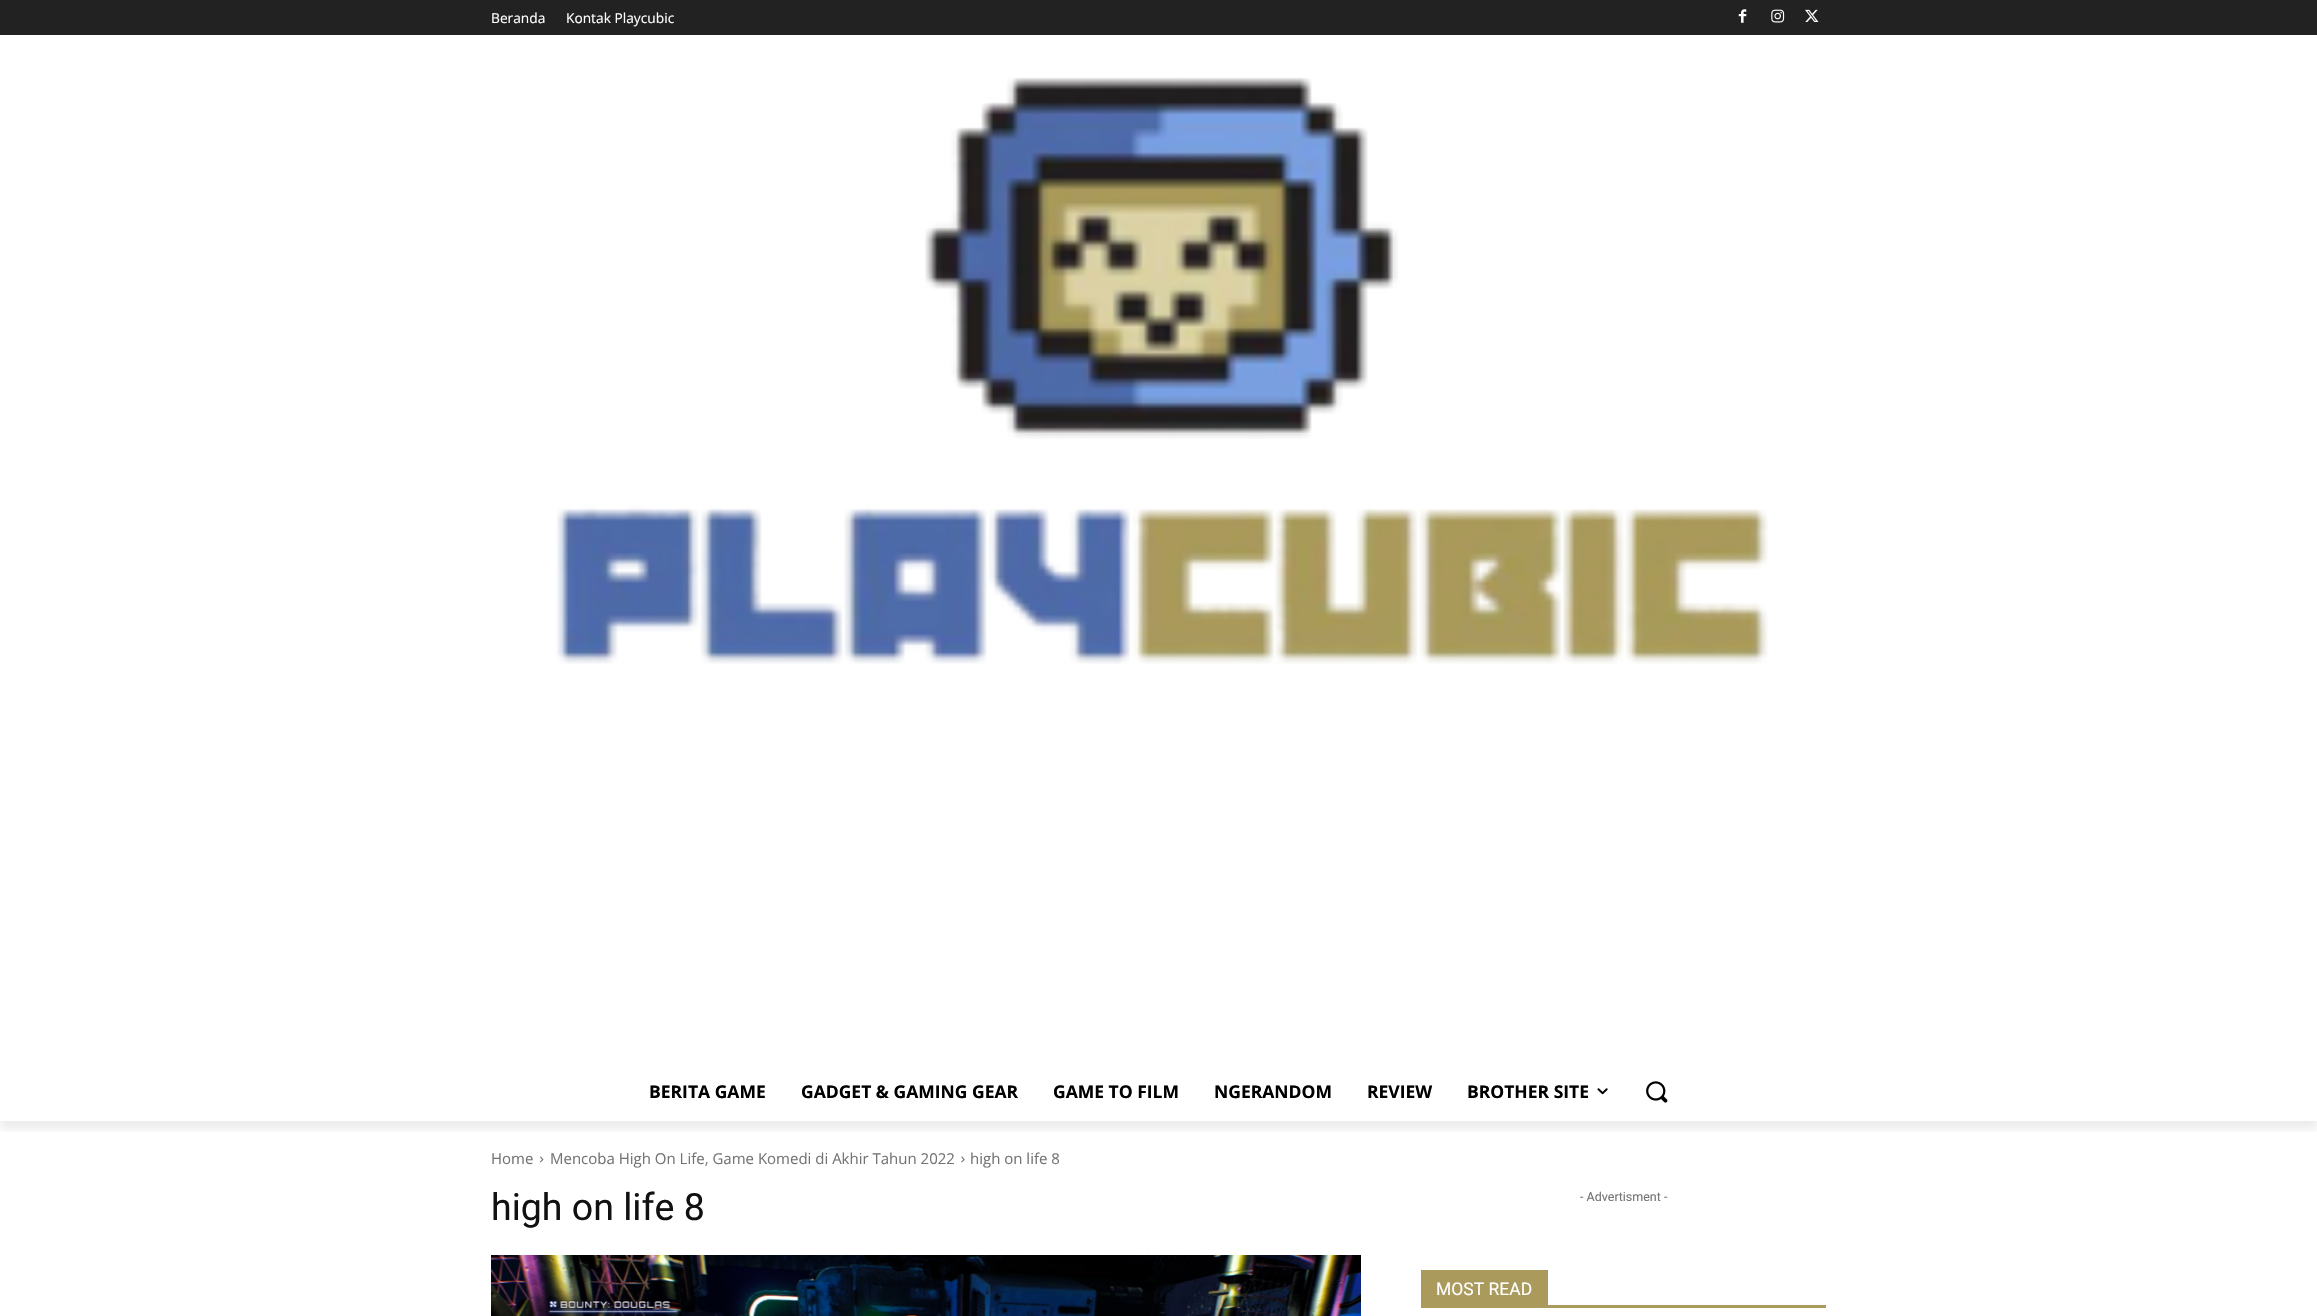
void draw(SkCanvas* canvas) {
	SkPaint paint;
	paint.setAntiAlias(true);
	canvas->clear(0xffffffff);
	paint.setColor(0xff222222);
	canvas->drawRect(SkRect::MakeXYWH(0, 0, 2317, 35), paint);
	canvas->drawImageRect(SkImages::DeferredFromEncodedData(SkData::MakeFromFileName("img1.png")), SkRect::MakeXYWH(1738, 9, 9, 14), SkSamplingOptions());
	canvas->drawImageRect(SkImages::DeferredFromEncodedData(SkData::MakeFromFileName("img2.png")), SkRect::MakeXYWH(1771, 9, 14, 14), SkSamplingOptions());
	canvas->drawImageRect(SkImages::DeferredFromEncodedData(SkData::MakeFromFileName("img3.png")), SkRect::MakeXYWH(1805, 9, 14, 13), SkSamplingOptions());
	canvas->drawImageRect(SkImages::DeferredFromEncodedData(SkData::MakeFromFileName("img4.png")), SkRect::MakeXYWH(556, 77, 1212, 587), SkSamplingOptions());
	canvas->save();
	canvas->clipRect(SkRect::MakeXYWH(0, 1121, 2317, 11));
	paint.setColor(0x14000000);
	paint.setMaskFilter(SkMaskFilter::MakeBlur(kNormal_SkBlurStyle, 5));
	canvas->drawRect(SkRect::MakeXYWH(0, 8, 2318, 1121), paint);
	paint.setMaskFilter(nullptr);
	canvas->restore();
	SkFont f1(fontMgr->matchFamilyStyle("Open Sans", SkFontStyle::Normal()), 13.75);
	f1.setSubpixel(true);
	paint.setColor(0xffffffff);
	canvas->drawString("Beranda", 491, 23, f1, paint);
	canvas->drawString("Kontak Playcubic", 566, 23, f1, paint);
	SkFont f2(fontMgr->matchFamilyStyle("Open Sans", SkFontStyle::Bold()), 17.5);
	f2.setSubpixel(true);
	paint.setColor(0xff000000);
	canvas->drawString("BERITA GAME", 649, 1098, f2, paint);
	canvas->drawString("GADGET & GAMING GEAR", 801, 1098, f2, paint);
	canvas->drawString("GAME TO FILM", 1053, 1098, f2, paint);
	canvas->drawString("NGERANDOM", 1214, 1098, f2, paint);
	canvas->drawString("REVIEW", 1367, 1098, f2, paint);
	canvas->drawString("BROTHER SITE", 1467, 1098, f2, paint);
	canvas->drawImageRect(SkImages::DeferredFromEncodedData(SkData::MakeFromFileName("img5.png")), SkRect::MakeXYWH(1597, 1088, 11, 7), SkSamplingOptions());
	canvas->drawImageRect(SkImages::DeferredFromEncodedData(SkData::MakeFromFileName("img6.png")), SkRect::MakeXYWH(1646, 1081, 22, 22), SkSamplingOptions());
	SkFont f3(fontMgr->matchFamilyStyle("Open Sans", SkFontStyle::Normal()), 15);
	f3.setSubpixel(true);
	paint.setColor(0xff747474);
	canvas->drawString("Home", 491, 1164, f3, paint);
	canvas->drawImageRect(SkImages::DeferredFromEncodedData(SkData::MakeFromFileName("img7.png")), SkRect::MakeXYWH(540, 1156, 4, 7), SkSamplingOptions());
	canvas->drawString("Mencoba High On Life, Game Komedi di Akhir Tahun 2022", 550, 1164, f3, paint);
	canvas->drawImageRect(SkImages::DeferredFromEncodedData(SkData::MakeFromFileName("img8.png")), SkRect::MakeXYWH(961, 1156, 4, 7), SkSamplingOptions());
	canvas->drawString("high on life 8", 970, 1164, f3, paint);
	SkFont f4(fontMgr->matchFamilyStyle("Roboto", SkFontStyle::Normal()), 37.5);
	f4.setSubpixel(true);
	paint.setColor(0xff111111);
	canvas->drawString("high on life 8", 491, 1220, f4, paint);
	canvas->drawImageRect(SkImages::DeferredFromEncodedData(SkData::MakeFromFileName("img9.png")), SkRect::MakeXYWH(491, 1255, 870, 61), SkSamplingOptions());
	SkFont f5(fontMgr->matchFamilyStyle("Roboto", SkFontStyle::Normal()), 12.5);
	f5.setSubpixel(true);
	paint.setColor(0xff747474);
	canvas->drawString("- Advertisment -", 1580, 1201, f5, paint);
	paint.setColor(0xffaa9a5c);
	canvas->drawRect(SkRect::MakeXYWH(1421, 1305, 405, 3), paint);
	canvas->drawRect(SkRect::MakeXYWH(1421, 1270, 127, 35), paint);
	SkFont f6(fontMgr->matchFamilyStyle("Roboto", SkFontStyle::Normal()), 17.5);
	f6.setSubpixel(true);
	paint.setColor(0xffffffff);
	canvas->drawString("MOST READ", 1436, 1295, f6, paint);
}
